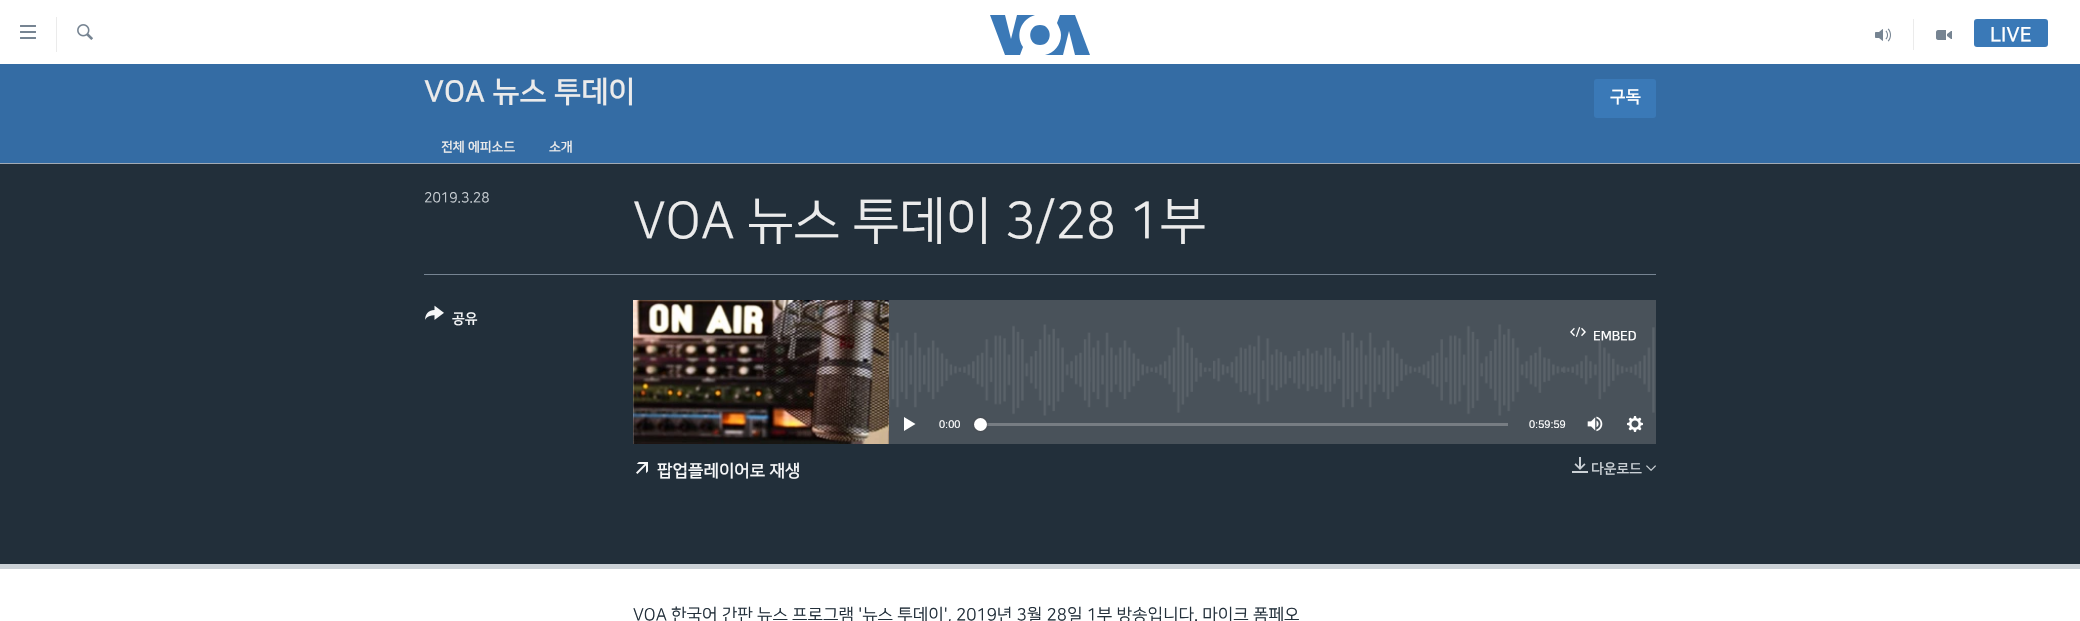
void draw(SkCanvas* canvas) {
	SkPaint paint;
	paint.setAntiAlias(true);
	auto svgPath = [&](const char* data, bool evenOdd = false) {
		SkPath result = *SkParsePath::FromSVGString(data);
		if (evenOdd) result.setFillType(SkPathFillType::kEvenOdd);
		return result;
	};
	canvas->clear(0xffffffff);
	canvas->drawImageRect(SkImages::DeferredFromEncodedData(SkData::MakeFromFileName("img1.png")), SkRect::MakeXYWH(20, 25, 16, 14), SkSamplingOptions());
	paint.setColor(0xffebebeb);
	canvas->drawRect(SkRect::MakeXYWH(56, 17, 1, 35), paint);
	canvas->drawImageRect(SkImages::DeferredFromEncodedData(SkData::MakeFromFileName("img2.png")), SkRect::MakeXYWH(77, 24, 16, 16), SkSamplingOptions());
	paint.setColor(0xff3b79b7);
	canvas->drawPath(svgPath("M1023 47L1020 55H1005L990 15H1005L1011 39L1017 15H1035C1021 19 1015 35 1023 47ZM1040 25C1027 25 1027 45 1040 45C1053 45 1053 25 1040 25ZM1061 35C1061 45 1054 53 1045 55H1063L1069 31L1075 55H1090L1075 15H1060L1057 23C1059 27 1061 31 1061 35Z"), paint);
	paint.setColor(0xffebebeb);
	canvas->drawRect(SkRect::MakeXYWH(1913, 19, 1, 31), paint);
	canvas->drawImageRect(SkImages::DeferredFromEncodedData(SkData::MakeFromFileName("img3.png")), SkRect::MakeXYWH(1875, 28, 16, 14), SkSamplingOptions());
	canvas->drawImageRect(SkImages::DeferredFromEncodedData(SkData::MakeFromFileName("img4.png")), SkRect::MakeXYWH(1936, 30, 16, 10), SkSamplingOptions());
	paint.setColor(0xff3a79b7);
	canvas->drawRoundRect(SkRect::MakeXYWH(1974, 19, 74, 28), 3, 3, paint);
	SkFont f1(fontMgr->matchFamilyStyle("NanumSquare", SkFontStyle::Bold()), 20);
	f1.setSubpixel(true);
	paint.setColor(0xffffffff);
	canvas->drawString("LIVE", 1990, 41, f1, paint);
	paint.setColor(0xff346ca4);
	canvas->drawRect(SkRect::MakeXYWH(0, 64, 2080, 99), paint);
	SkFont f2(fontMgr->matchFamilyStyle("NanumSquare", SkFontStyle::Bold()), 29.75);
	f2.setSubpixel(true);
	paint.setColor(0xffebebeb);
	canvas->drawString("VOA 뉴스 투데이", 424, 101, f2, paint);
	paint.setColor(0xff3a79b7);
	canvas->drawRoundRect(SkRect::MakeXYWH(1594, 79, 62, 39), 3, 3, paint);
	SkFont f3(fontMgr->matchFamilyStyle("NanumSquare", SkFontStyle::Bold()), 17);
	f3.setSubpixel(true);
	paint.setColor(0xffffffff);
	canvas->drawString("구독", 1610, 102, f3, paint);
	SkFont f4(fontMgr->matchFamilyStyle("NanumSquare", SkFontStyle::Bold()), 13);
	f4.setSubpixel(true);
	paint.setColor(0xffebebeb);
	canvas->drawString("전체 에피소드", 441, 151, f4, paint);
	canvas->drawString("소개", 549, 151, f4, paint);
	paint.setColor(0xff222f3a);
	canvas->drawRect(SkRect::MakeXYWH(0, 164, 2080, 400), paint);
	paint.setColor(0xffa1aab4);
	canvas->drawRect(SkRect::MakeXYWH(0, 163, 2080, 1), paint);
	paint.setColor(0xffcbd1d6);
	canvas->drawRect(SkRect::MakeXYWH(0, 564, 2080, 5), paint);
	SkFont f5(fontMgr->matchFamilyStyle("NanumSquare", SkFontStyle::Normal()), 14);
	f5.setSubpixel(true);
	canvas->drawString("2019.3.28", 424, 202, f5, paint);
	SkFont f6(fontMgr->matchFamilyStyle("NanumSquare", SkFontStyle::Normal()), 51);
	f6.setSubpixel(true);
	paint.setColor(0xffebebeb);
	canvas->drawString("VOA 뉴스 투데이 3/28 1부", 633, 237, f6, paint);
	paint.setColor(0xff768492);
	canvas->drawRect(SkRect::MakeXYWH(424, 274, 1232, 1), paint);
	canvas->drawImageRect(SkImages::DeferredFromEncodedData(SkData::MakeFromFileName("img5.png")), SkRect::MakeXYWH(425, 305, 19, 15), SkSamplingOptions());
	SkFont f7(fontMgr->matchFamilyStyle("NanumSquare", SkFontStyle::Bold()), 14);
	f7.setSubpixel(true);
	paint.setColor(0xfff6f7f8);
	canvas->drawString("공유", 452, 323, f7, paint);
	paint.setColor(0xff49525a);
	canvas->drawRect(SkRect::MakeXYWH(889, 300, 767, 144), paint);
	canvas->drawImageRect(SkImages::DeferredFromEncodedData(SkData::MakeFromFileName("img6.png")), SkRect::MakeXYWH(889, 324, 766, 92), SkSamplingOptions());
	canvas->drawImageRect(SkImages::DeferredFromEncodedData(SkData::MakeFromFileName("img7.png")), SkRect::MakeXYWH(633, 300, 256, 144), SkSamplingOptions());
	canvas->drawImageRect(SkImages::DeferredFromEncodedData(SkData::MakeFromFileName("img8.png")), SkRect::MakeXYWH(1570, 327, 16, 10), SkSamplingOptions());
	paint.setColor(0xffffffff);
	canvas->drawString("EMBED", 1593, 340, f4, paint);
	canvas->drawPath(svgPath("M904 431L915.5 424L904 417Z"), paint);
	SkFont f8(fontMgr->matchFamilyStyle("Liberation Sans", SkFontStyle::Normal()), 11);
	f8.setSubpixel(true);
	canvas->drawString("0:00", 939, 428, f8, paint);
	paint.setColor(0xff777d83);
	canvas->drawRect(SkRect::MakeXYWH(980, 423, 528, 3), paint);
	paint.setColor(0xff414144);
	paint.setMaskFilter(SkMaskFilter::MakeBlur(kNormal_SkBlurStyle, 1.5));
	canvas->drawRoundRect(SkRect::MakeXYWH(974, 418, 13, 13), 6.5, 6.5, paint);
	paint.setMaskFilter(nullptr);
	paint.setColor(0xffffffff);
	canvas->drawCircle(980.5, 424.5, 6.5, paint);
	canvas->drawString("0:59:59", 1529, 428, f8, paint);
	canvas->drawImageRect(SkImages::DeferredFromEncodedData(SkData::MakeFromFileName("img9.png")), SkRect::MakeXYWH(1587, 416, 16, 16), SkSamplingOptions());
	canvas->drawImageRect(SkImages::DeferredFromEncodedData(SkData::MakeFromFileName("img10.png")), SkRect::MakeXYWH(1627, 416, 16, 16), SkSamplingOptions());
	canvas->drawImageRect(SkImages::DeferredFromEncodedData(SkData::MakeFromFileName("img11.png")), SkRect::MakeXYWH(636, 462, 12, 12), SkSamplingOptions());
	paint.setColor(0xfff6f7f8);
	canvas->drawString("팝업플레이어로 재생", 657, 476, f3, paint);
	canvas->drawImageRect(SkImages::DeferredFromEncodedData(SkData::MakeFromFileName("img12.png")), SkRect::MakeXYWH(1572, 457, 16, 16), SkSamplingOptions());
	paint.setColor(0xffcbd1d6);
	canvas->drawString("다운로드", 1591, 473, f7, paint);
	canvas->drawImageRect(SkImages::DeferredFromEncodedData(SkData::MakeFromFileName("img13.png")), SkRect::MakeXYWH(1646, 465, 10, 6), SkSamplingOptions());
	SkFont f9(fontMgr->matchFamilyStyle("NanumSquare", SkFontStyle::Normal()), 17);
	f9.setSubpixel(true);
	paint.setColor(0xff222f3a);
	canvas->drawString("VOA 한국어 간판 뉴스 프로그램 '뉴스 투데이', 2019년 3월 28일 1부 방송입니다. 마이크 폼페오", 633, 620, f9, paint);
}
